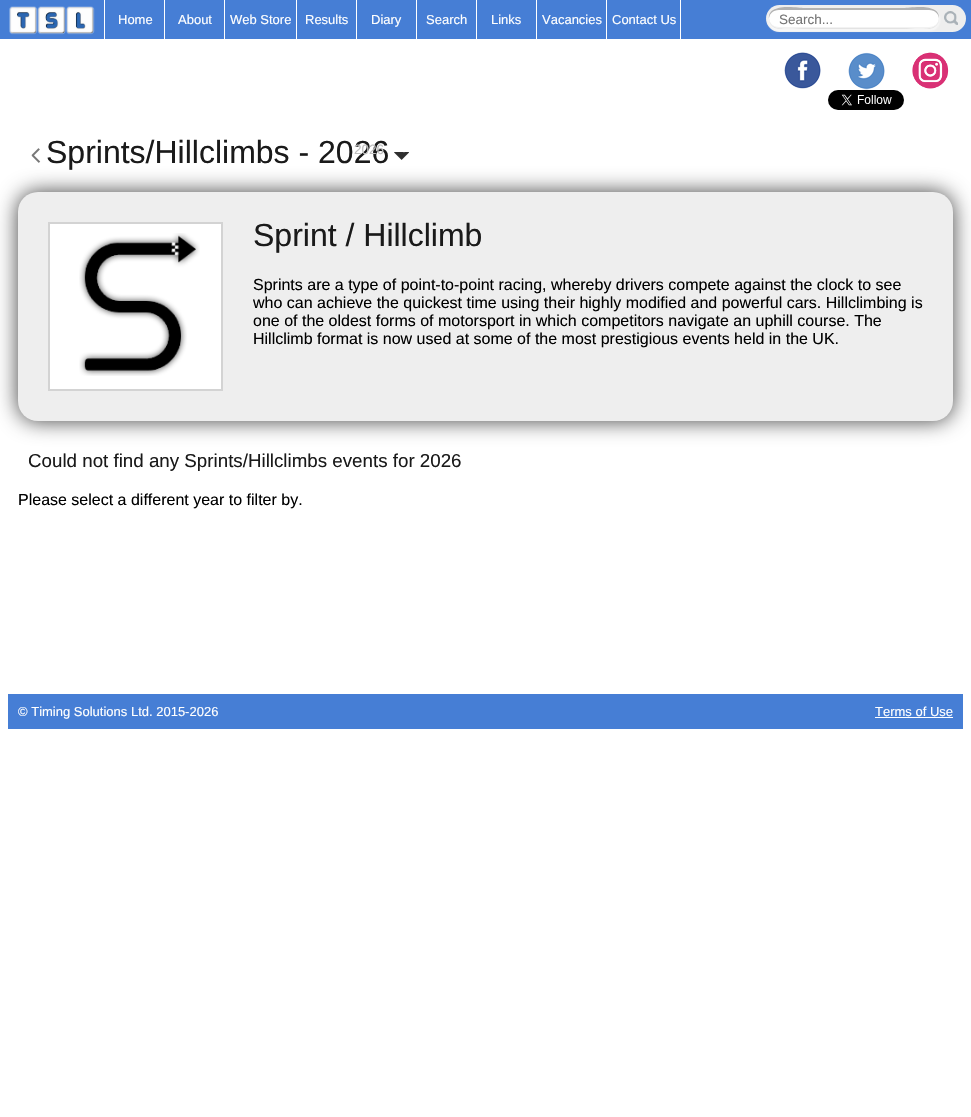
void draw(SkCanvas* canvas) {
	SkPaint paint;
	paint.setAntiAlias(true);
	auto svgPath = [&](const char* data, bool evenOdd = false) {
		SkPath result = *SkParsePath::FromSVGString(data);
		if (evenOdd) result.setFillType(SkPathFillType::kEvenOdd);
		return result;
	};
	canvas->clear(0xffffffff);
	paint.setColor(0xff467ed5);
	canvas->drawRect(SkRect::MakeXYWH(0, 0, 971, 39), paint);
	canvas->drawImageRect(SkImages::DeferredFromEncodedData(SkData::MakeFromFileName("img1.png")), SkRect::MakeXYWH(9, 6, 86, 29), SkSamplingOptions());
	paint.setColor(0xffffffff);
	canvas->drawRect(SkRect::MakeXYWH(104, 0, 1, 39), paint);
	canvas->drawRect(SkRect::MakeXYWH(164, 0, 1, 39), paint);
	SkFont f1(fontMgr->matchFamilyStyle("Liberation Sans", SkFontStyle::Normal()), 13);
	f1.setSubpixel(true);
	canvas->drawString("Home", 118, 24, f1, paint);
	canvas->drawRect(SkRect::MakeXYWH(224, 0, 1, 39), paint);
	canvas->drawString("About", 178, 24, f1, paint);
	canvas->drawRect(SkRect::MakeXYWH(296, 0, 1, 39), paint);
	canvas->drawString("Web Store", 230, 24, f1, paint);
	canvas->drawRect(SkRect::MakeXYWH(356, 0, 1, 39), paint);
	canvas->drawString("Results", 305, 24, f1, paint);
	canvas->drawRect(SkRect::MakeXYWH(416, 0, 1, 39), paint);
	canvas->drawString("Diary", 371, 24, f1, paint);
	canvas->drawRect(SkRect::MakeXYWH(476, 0, 1, 39), paint);
	canvas->drawString("Search", 426, 24, f1, paint);
	canvas->drawRect(SkRect::MakeXYWH(536, 0, 1, 39), paint);
	canvas->drawString("Links", 491, 24, f1, paint);
	canvas->drawRect(SkRect::MakeXYWH(606, 0, 1, 39), paint);
	canvas->drawString("Vacancies", 542, 24, f1, paint);
	canvas->drawRect(SkRect::MakeXYWH(680, 0, 1, 39), paint);
	canvas->drawString("Contact Us", 612, 24, f1, paint);
	paint.setColor(0xffeeeeee);
	canvas->drawRoundRect(SkRect::MakeXYWH(766, 5, 200, 27), 13.5, 13.5, paint);
	paint.setColor(0xfffafafa);
	paint.setMaskFilter(SkMaskFilter::MakeBlur(kNormal_SkBlurStyle, 1));
	canvas->drawRoundRect(SkRect::MakeXYWH(768, 9, 172, 22), 11, 11, paint);
	paint.setMaskFilter(nullptr);
	paint.setColor(0xffe1e1e1);
	paint.setMaskFilter(SkMaskFilter::MakeBlur(kNormal_SkBlurStyle, 0.5));
	canvas->drawRoundRect(SkRect::MakeXYWH(769, 9, 170, 20), 10, 10, paint);
	paint.setMaskFilter(nullptr);
	paint.setColor(0xffffffff);
	canvas->drawRoundRect(SkRect::MakeXYWH(769, 8, 170, 20), 10, 10, paint);
	paint.setColor(0xfff2f2f2);
	canvas->drawPath(svgPath("M769 18C768 34 799 28 804 28H904C909 28 940 34 939 18C939 23 935 27 929 27H779C773 27 769 23 769 18Z"), paint);
	paint.setColor(0xffb2b2b2);
	canvas->drawPath(svgPath("M779 10H929C935 10 939 14 939 19C941 2 909 8 904 8H804C799 8 767 2 769 19C769 14 773 10 779 10Z"), paint);
	SkFont f2(fontMgr->matchFamilyStyle("Liberation Sans", SkFontStyle::Normal()), 13.5);
	f2.setSubpixel(true);
	paint.setColor(0xff757575);
	canvas->drawString("Search...", 779, 24, f2, paint);
	canvas->drawImageRect(SkImages::DeferredFromEncodedData(SkData::MakeFromFileName("img2.png")), SkRect::MakeXYWH(944, 11, 14, 14), SkSamplingOptions());
	canvas->drawImageRect(SkImages::DeferredFromEncodedData(SkData::MakeFromFileName("img3.png")), SkRect::MakeXYWH(784, 52, 37, 37), SkSamplingOptions());
	canvas->drawImageRect(SkImages::DeferredFromEncodedData(SkData::MakeFromFileName("img4.png")), SkRect::MakeXYWH(848, 52, 37, 38), SkSamplingOptions());
	canvas->drawImageRect(SkImages::DeferredFromEncodedData(SkData::MakeFromFileName("img5.png")), SkRect::MakeXYWH(828, 90, 76, 20), SkSamplingOptions());
	canvas->drawImageRect(SkImages::DeferredFromEncodedData(SkData::MakeFromFileName("img6.png")), SkRect::MakeXYWH(912, 52, 37, 37), SkSamplingOptions());
	SkFont f3(fontMgr->matchFamilyStyle("Liberation Sans", SkFontStyle::Normal()), 32);
	f3.setSubpixel(true);
	paint.setColor(0xff1a1a1a);
	canvas->drawString("Sprints/Hillclimbs - 2026", 46, 163, f3, paint);
	canvas->drawImageRect(SkImages::DeferredFromEncodedData(SkData::MakeFromFileName("img7.png")), SkRect::MakeXYWH(31, 148, 10, 15), SkSamplingOptions());
	canvas->drawImageRect(SkImages::DeferredFromEncodedData(SkData::MakeFromFileName("img8.png")), SkRect::MakeXYWH(394, 152, 15, 8), SkSamplingOptions());
	paint.setStroke(true);
	paint.setStrokeWidth(2);
	paint.setColor(0xffffffff);
	canvas->drawPath(svgPath("M400 147L404 151L408 147"), paint);
	paint.setStroke(false);
	paint.setColor(0xffbebebe);
	canvas->drawString("2026", 354, 154, f2, paint);
	paint.setColor(0xbf000000);
	paint.setMaskFilter(SkMaskFilter::MakeBlur(kNormal_SkBlurStyle, 10.5));
	canvas->drawRoundRect(SkRect::MakeXYWH(18, 192, 935, 229), 20, 20, paint);
	paint.setMaskFilter(nullptr);
	paint.setColor(0xffeeeeee);
	canvas->drawRoundRect(SkRect::MakeXYWH(18, 192, 935, 229), 20, 20, paint);
	paint.setColor(0xffffffff);
	canvas->drawRect(SkRect::MakeXYWH(49, 223, 173, 167), paint);
	paint.setStroke(true);
	paint.setColor(0xffd3d3d3);
	canvas->drawRect(SkRect::MakeXYWH(49, 223, 173, 167), paint);
	canvas->drawImageRect(SkImages::DeferredFromEncodedData(SkData::MakeFromFileName("img9.png")), SkRect::MakeXYWH(79, 233, 121, 143), SkSamplingOptions());
	paint.setStroke(false);
	paint.setColor(0xff1a1a1a);
	canvas->drawString("Sprint / Hillclimb", 253, 246, f3, paint);
	SkFont f4(fontMgr->matchFamilyStyle("Liberation Sans", SkFontStyle::Normal()), 16);
	f4.setSubpixel(true);
	paint.setColor(0xff000000);
	canvas->drawString("Sprints are a type of point-to-point racing, whereby drivers compete against the clock to see", 253, 290, f4, paint);
	canvas->drawString("who can achieve the quickest time using their highly modified and powerful cars. Hillclimbing is", 253, 308, f4, paint);
	canvas->drawString("one of the oldest forms of motorsport in which competitors navigate an uphill course. The", 253, 326, f4, paint);
	canvas->drawString("Hillclimb format is now used at some of the most prestigious events held in the UK.", 253, 344, f4, paint);
	SkFont f5(fontMgr->matchFamilyStyle("Liberation Sans", SkFontStyle::Normal()), 18.75);
	f5.setSubpixel(true);
	paint.setColor(0xff1a1a1a);
	canvas->drawString("Could not find any Sprints/Hillclimbs events for 2026", 28, 467, f5, paint);
	paint.setColor(0xff000000);
	canvas->drawString("Please select a different year to filter by.", 18, 505, f4, paint);
	paint.setColor(0xff467ed5);
	canvas->drawRect(SkRect::MakeXYWH(8, 694, 955, 35), paint);
	paint.setColor(0xffffffff);
	canvas->drawString("© Timing Solutions Ltd. 2015-2026", 18, 716, f1, paint);
	canvas->drawString("Terms of Use", 875, 716, f1, paint);
	canvas->drawRect(SkRect::MakeXYWH(875, 717, 78, 1), paint);
}
